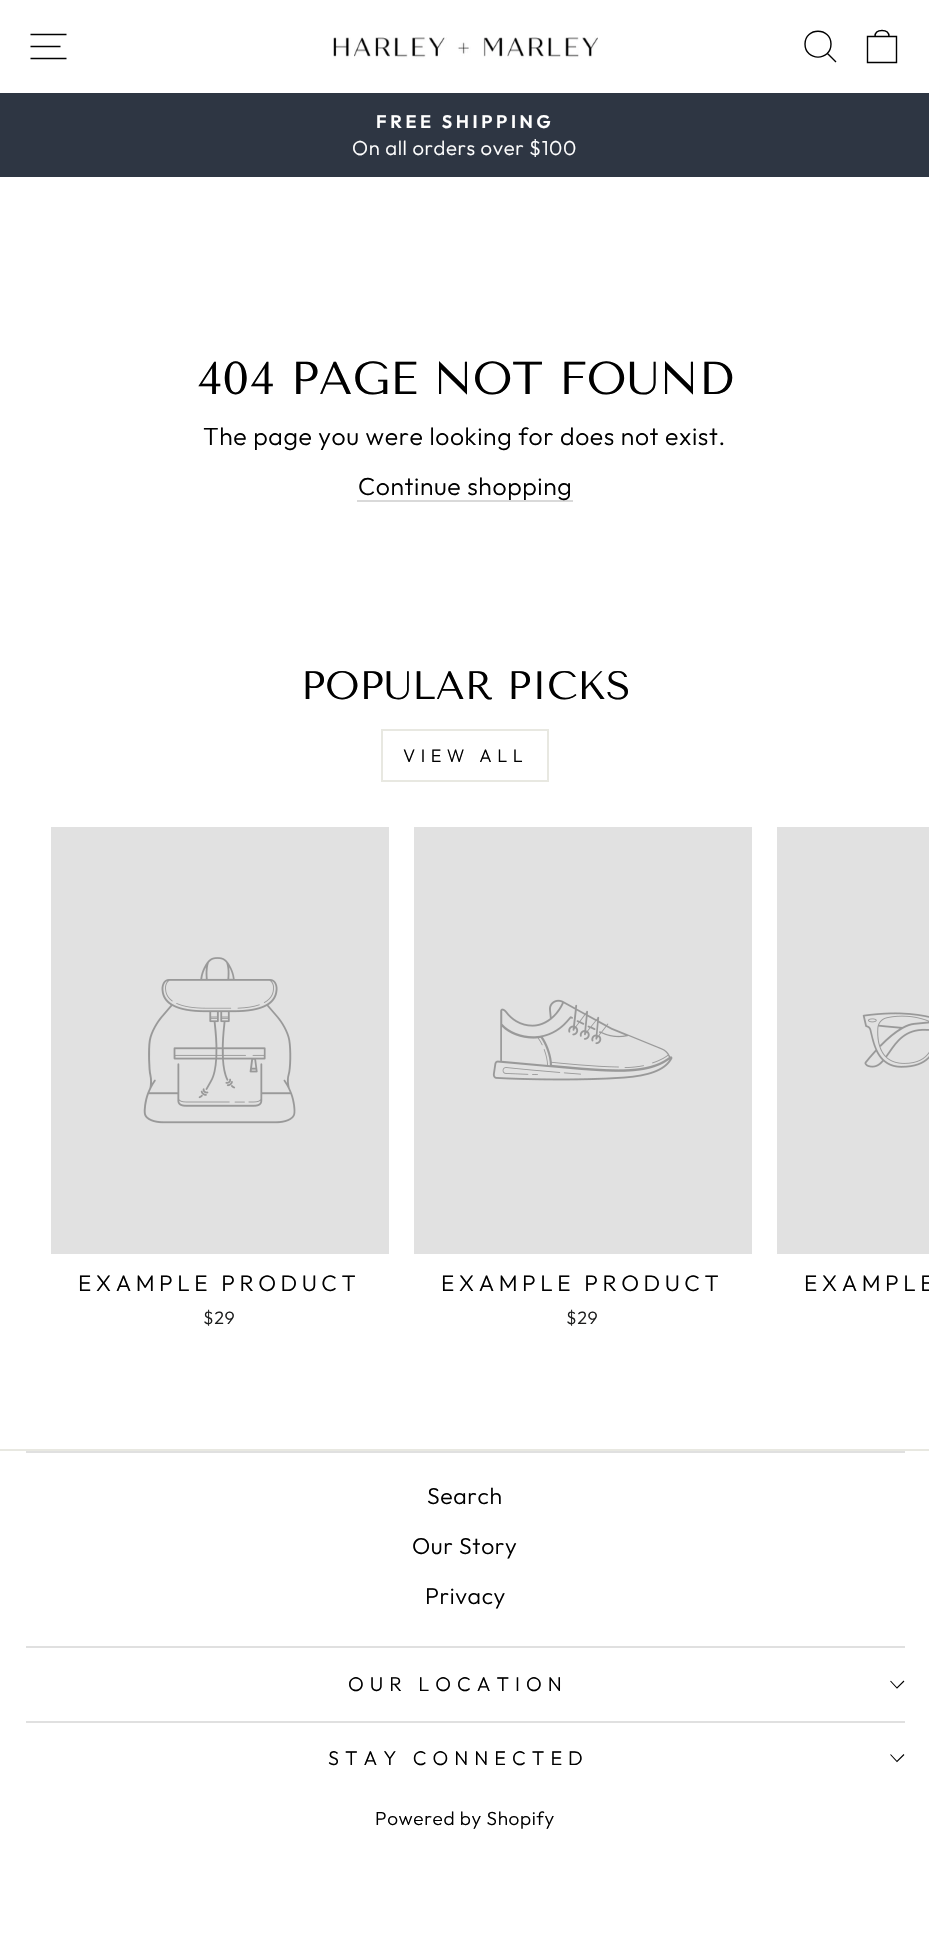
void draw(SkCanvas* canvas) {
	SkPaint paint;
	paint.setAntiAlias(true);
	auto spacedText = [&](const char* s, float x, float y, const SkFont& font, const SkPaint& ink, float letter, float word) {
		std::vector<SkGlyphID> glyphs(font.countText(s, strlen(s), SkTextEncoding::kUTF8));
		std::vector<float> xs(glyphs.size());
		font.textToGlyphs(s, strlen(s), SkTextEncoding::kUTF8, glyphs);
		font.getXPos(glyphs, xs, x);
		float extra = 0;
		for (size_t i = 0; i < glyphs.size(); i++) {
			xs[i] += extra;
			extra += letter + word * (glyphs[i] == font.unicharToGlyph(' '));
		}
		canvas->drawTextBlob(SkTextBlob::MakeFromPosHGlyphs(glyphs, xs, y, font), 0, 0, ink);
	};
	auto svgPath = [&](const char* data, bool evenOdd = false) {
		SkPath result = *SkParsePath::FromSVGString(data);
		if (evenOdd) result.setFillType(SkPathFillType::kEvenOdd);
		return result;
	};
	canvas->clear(0xffffffff);
	paint.setStroke(true);
	paint.setStrokeWidth(1.4);
	paint.setColor(0xff000000);
	canvas->drawPath(svgPath("M30.5 34.5H66.5M30.5 46.5H60.5M30.5 58.5H66.5"), paint);
	canvas->drawImageRect(SkImages::DeferredFromEncodedData(SkData::MakeFromFileName("img1.png")), SkRect::MakeXYWH(333, 37, 265, 22), SkSamplingOptions());
	canvas->drawPath(svgPath("M831 44C831 61.5 805 61.5 805 44C805 27 831 27 831 44ZM836 62L827.5 53.5"), paint);
	canvas->drawPath(svgPath("M867.5 36.5H896.5V62.5H867.5ZM875 36.5C875 31.5 878 30.5 882 30.5C886 30.5 889 31.5 889 36.5"), paint);
	paint.setStroke(false);
	paint.setColor(0xff2e3643);
	canvas->drawRect(SkRect::MakeXYWH(0, 93, 929, 84), paint);
	SkFont f1(fontMgr->matchFamilyStyle("Outfit", SkFontStyle(600, SkFontStyle::kNormal_Width, SkFontStyle::kUpright_Slant)), 18.25);
	f1.setSubpixel(true);
	paint.setColor(0xffffffff);
	spacedText("FREE SHIPPING", 376, 128, f1, paint, 3.6, 0);
	SkFont f2(fontMgr->matchFamilyStyle("Outfit", SkFontStyle(300, SkFontStyle::kNormal_Width, SkFontStyle::kUpright_Slant)), 20.25);
	f2.setSubpixel(true);
	spacedText("On all orders over $100", 352, 155, f2, paint, 0.6, 0);
	SkFont f3(fontMgr->matchFamilyStyle("Tenor Sans", SkFontStyle::Normal()), 45.9);
	f3.setSubpixel(true);
	paint.setColor(0xff000000);
	canvas->drawString("404 PAGE NOT FOUND", 197, 394, f3, paint);
	SkFont f4(fontMgr->matchFamilyStyle("Outfit", SkFontStyle(300, SkFontStyle::kNormal_Width, SkFontStyle::kUpright_Slant)), 24.8);
	f4.setSubpixel(true);
	spacedText("The page you were looking for does not exist.", 203, 445, f4, paint, 0.6, 0);
	paint.setColor(0xffd9d9d9);
	canvas->drawRect(SkRect::MakeXYWH(357, 500, 216, 2), paint);
	paint.setColor(0xff000000);
	spacedText("Continue shopping", 358, 495, f4, paint, 0.6, 0);
	SkFont f5(fontMgr->matchFamilyStyle("Tenor Sans", SkFontStyle::Normal()), 39.5);
	f5.setSubpixel(true);
	canvas->drawString("POPULAR PICKS", 301, 699, f5, paint);
	paint.setStroke(true);
	paint.setStrokeWidth(2);
	paint.setColor(0xffe8e8e1);
	canvas->drawRect(SkRect::MakeXYWH(382, 730, 166, 51), paint);
	SkFont f6(fontMgr->matchFamilyStyle("Outfit", SkFontStyle(300, SkFontStyle::kNormal_Width, SkFontStyle::kUpright_Slant)), 18);
	f6.setSubpixel(true);
	paint.setStroke(false);
	paint.setColor(0xff000000);
	spacedText("VIEW ALL", 403, 762, f6, paint, 5.5, 0);
	paint.setColor(0xffe1e1e1);
	canvas->drawRect(SkRect::MakeXYWH(51, 827, 338, 427), paint);
	canvas->drawImageRect(SkImages::DeferredFromEncodedData(SkData::MakeFromFileName("img2.png")), SkRect::MakeXYWH(143, 957, 153, 167), SkSamplingOptions());
	SkFont f7(fontMgr->matchFamilyStyle("Outfit", SkFontStyle(300, SkFontStyle::kNormal_Width, SkFontStyle::kUpright_Slant)), 22.5);
	f7.setSubpixel(true);
	paint.setColor(0xff000000);
	spacedText("EXAMPLE PRODUCT", 78, 1291, f7, paint, 4.5, 0);
	paint.setColor(0xff1c1d1d);
	spacedText("$29", 203, 1324, f6, paint, 0.6, 0);
	paint.setColor(0xffe1e1e1);
	canvas->drawRect(SkRect::MakeXYWH(414, 827, 338, 427), paint);
	canvas->drawImageRect(SkImages::DeferredFromEncodedData(SkData::MakeFromFileName("img3.png")), SkRect::MakeXYWH(492, 999, 181, 82), SkSamplingOptions());
	paint.setColor(0xff000000);
	spacedText("EXAMPLE PRODUCT", 441, 1291, f7, paint, 4.5, 0);
	paint.setColor(0xff1c1d1d);
	spacedText("$29", 566, 1324, f6, paint, 0.6, 0);
	paint.setColor(0xffe1e1e1);
	canvas->drawRect(SkRect::MakeXYWH(777, 827, 152, 427), paint);
	canvas->drawImageRect(SkImages::DeferredFromEncodedData(SkData::MakeFromFileName("img4.png")), SkRect::MakeXYWH(862, 1012, 67, 56), SkSamplingOptions());
	paint.setColor(0xff000000);
	spacedText("EXAMPLE", 804, 1291, f7, paint, 4.5, 0);
	paint.setColor(0xffe8e8e1);
	canvas->drawRect(SkRect::MakeXYWH(0, 1449, 929, 2), paint);
	paint.setColor(0xffe0e0e0);
	canvas->drawRect(SkRect::MakeXYWH(26, 1451, 879, 2), paint);
	SkFont f8(fontMgr->matchFamilyStyle("Outfit", SkFontStyle(300, SkFontStyle::kNormal_Width, SkFontStyle::kUpright_Slant)), 23);
	f8.setSubpixel(true);
	paint.setColor(0xff000000);
	spacedText("Search", 427, 1504, f8, paint, 0.6, 0);
	spacedText("Our Story", 412, 1554, f8, paint, 0.6, 0);
	spacedText("Privacy", 425, 1604, f8, paint, 0.6, 0);
	paint.setColor(0xffe0e0e0);
	canvas->drawRect(SkRect::MakeXYWH(26, 1646, 879, 2), paint);
	SkFont f9(fontMgr->matchFamilyStyle("Outfit", SkFontStyle(300, SkFontStyle::kNormal_Width, SkFontStyle::kUpright_Slant)), 19.9);
	f9.setSubpixel(true);
	paint.setColor(0xff000000);
	spacedText("OUR LOCATION", 348, 1691, f9, paint, 6, 0);
	paint.setStroke(true);
	paint.setStrokeWidth(1.1);
	canvas->drawPath(svgPath("M890.5 1681L897 1688L904 1681"), paint);
	paint.setStroke(false);
	paint.setColor(0xffe0e0e0);
	canvas->drawRect(SkRect::MakeXYWH(26, 1721, 879, 2), paint);
	paint.setColor(0xff000000);
	spacedText("STAY CONNECTED", 328, 1765, f9, paint, 6, 0);
	paint.setStroke(true);
	canvas->drawPath(svgPath("M890.5 1754.5L897 1761.5L904 1754.5"), paint);
	SkFont f10(fontMgr->matchFamilyStyle("Outfit", SkFontStyle(300, SkFontStyle::kNormal_Width, SkFontStyle::kUpright_Slant)), 19);
	f10.setSubpixel(true);
	paint.setStroke(false);
	spacedText("Powered by Shopify", 375, 1825, f10, paint, 0.6, 0);
}
